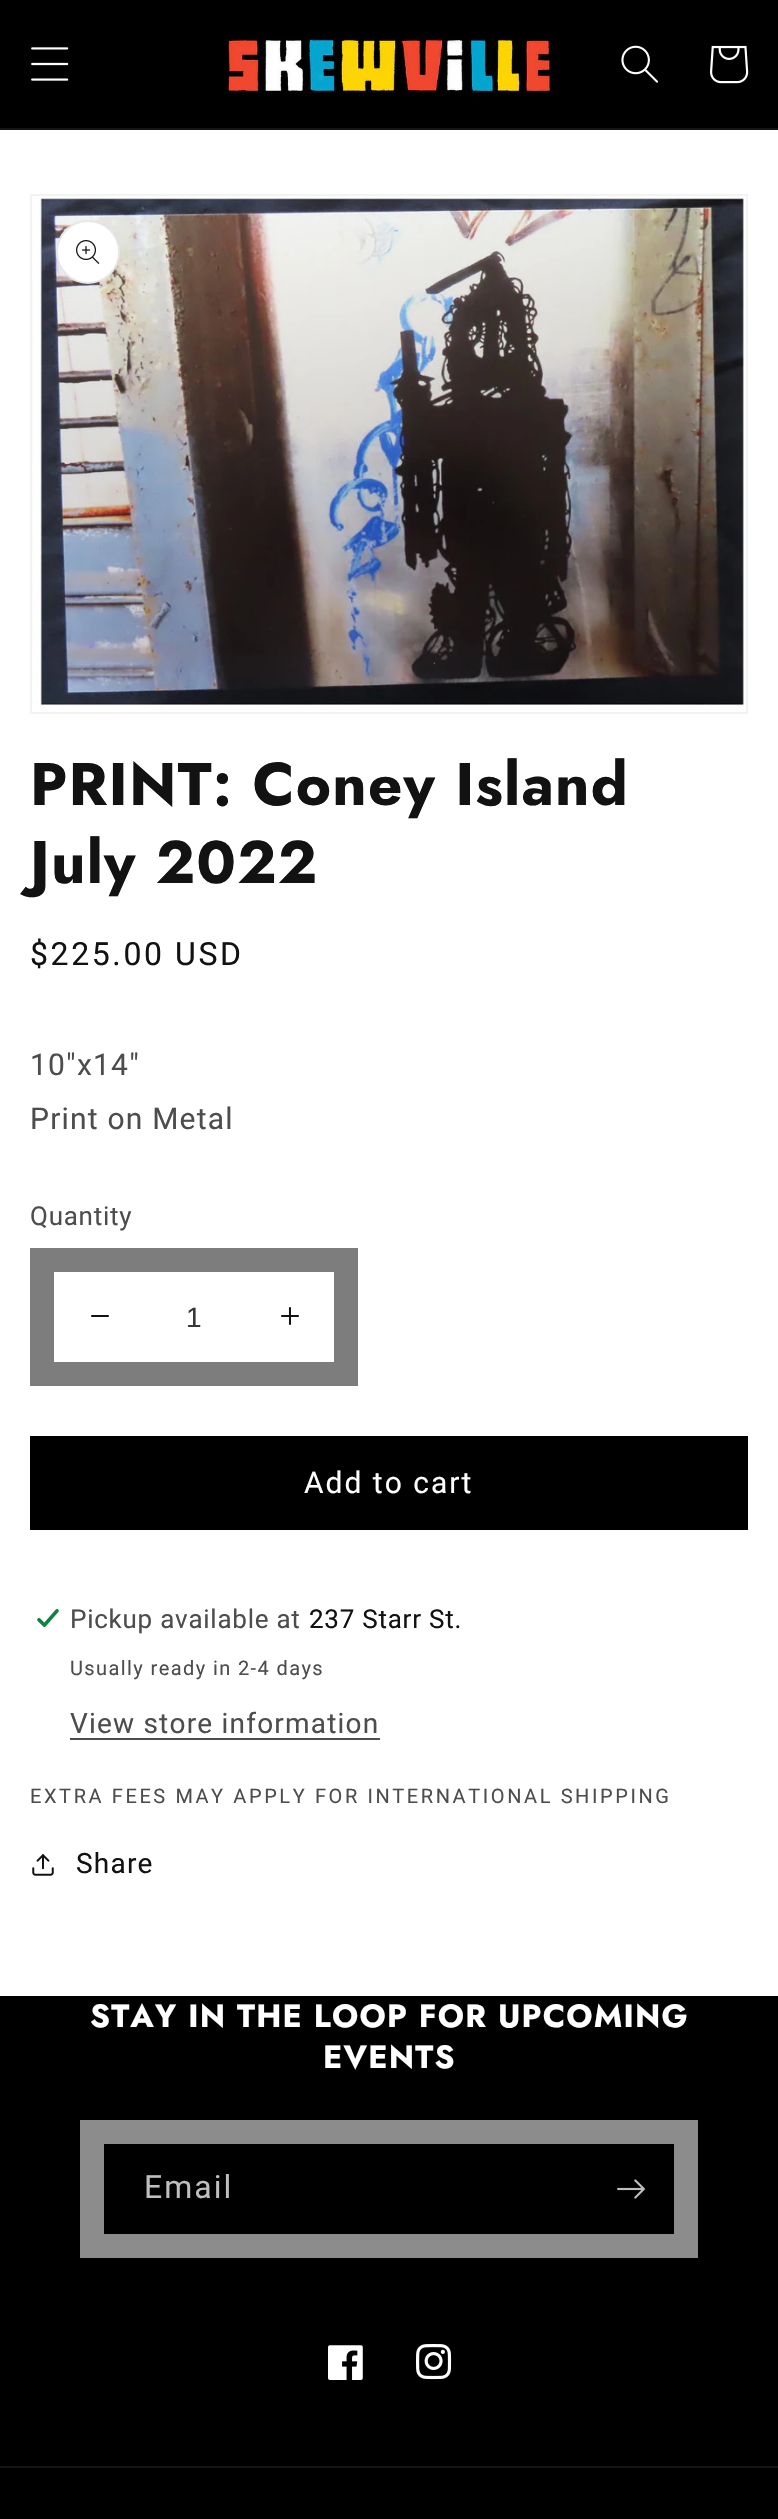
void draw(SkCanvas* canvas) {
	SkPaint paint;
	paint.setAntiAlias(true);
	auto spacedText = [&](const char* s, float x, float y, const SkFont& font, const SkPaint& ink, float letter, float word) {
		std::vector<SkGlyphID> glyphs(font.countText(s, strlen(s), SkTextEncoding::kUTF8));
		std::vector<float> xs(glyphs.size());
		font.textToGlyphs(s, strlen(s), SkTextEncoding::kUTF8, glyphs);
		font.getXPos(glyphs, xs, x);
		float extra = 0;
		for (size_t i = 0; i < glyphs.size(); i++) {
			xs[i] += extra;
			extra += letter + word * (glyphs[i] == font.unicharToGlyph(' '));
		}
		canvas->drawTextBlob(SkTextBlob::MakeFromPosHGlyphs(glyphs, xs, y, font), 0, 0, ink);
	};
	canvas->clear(0xffffffff);
	paint.setColor(0xff000000);
	canvas->drawRect(SkRect::MakeXYWH(0, 0, 778, 128), paint);
	paint.setColor(0xff141414);
	canvas->drawRect(SkRect::MakeXYWH(0, 128, 778, 2), paint);
	canvas->drawImageRect(SkImages::DeferredFromEncodedData(SkData::MakeFromFileName("img1.png")), SkRect::MakeXYWH(31, 47, 38, 34), SkSamplingOptions());
	canvas->drawImageRect(SkImages::DeferredFromEncodedData(SkData::MakeFromFileName("img2.png")), SkRect::MakeXYWH(224, 36, 328, 58), SkSamplingOptions());
	canvas->drawImageRect(SkImages::DeferredFromEncodedData(SkData::MakeFromFileName("img3.png")), SkRect::MakeXYWH(621, 45, 37, 38), SkSamplingOptions());
	canvas->drawImageRect(SkImages::DeferredFromEncodedData(SkData::MakeFromFileName("img4.png")), SkRect::MakeXYWH(710, 45, 39, 39), SkSamplingOptions());
	paint.setStroke(true);
	paint.setStrokeWidth(2);
	paint.setColor(0xfff3f3f3);
	canvas->drawRect(SkRect::MakeXYWH(31, 195, 716, 518), paint);
	canvas->drawImageRect(SkImages::DeferredFromEncodedData(SkData::MakeFromFileName("img5.png")), SkRect::MakeXYWH(32, 196, 714, 514), SkSamplingOptions());
	paint.setStroke(false);
	paint.setColor(0xffffffff);
	canvas->drawCircle(88, 252, 32, paint);
	paint.setStroke(true);
	paint.setColor(0x1a121212);
	canvas->drawCircle(88, 252, 31, paint);
	canvas->drawImageRect(SkImages::DeferredFromEncodedData(SkData::MakeFromFileName("img6.png")), SkRect::MakeXYWH(76, 240, 24, 24), SkSamplingOptions());
	SkFont f1(fontMgr->matchFamilyStyle("Jost", SkFontStyle::Bold()), 60);
	f1.setSubpixel(true);
	paint.setStroke(false);
	paint.setColor(0xff121212);
	spacedText("PRINT: Coney Island", 30, 805, f1, paint, 1.2, 0);
	spacedText("July 2022", 30, 883, f1, paint, 1.2, 0);
	SkFont f2(fontMgr->matchFamilyStyle("Roboto", SkFontStyle::Normal()), 32);
	f2.setSubpixel(true);
	spacedText("$225.00 USD", 30, 965, f2, paint, 2.6, 0);
	SkFont f3(fontMgr->matchFamilyStyle("Roboto", SkFontStyle::Normal()), 30);
	f3.setSubpixel(true);
	paint.setColor(0xff4d4d4d);
	spacedText("10\"x14\"", 30, 1075, f3, paint, 1.2, 0);
	spacedText("Print on Metal", 30, 1129, f3, paint, 1.2, 0);
	SkFont f4(fontMgr->matchFamilyStyle("Roboto", SkFontStyle::Normal()), 26);
	f4.setSubpixel(true);
	spacedText("Quantity", 30, 1225, f4, paint, 0.75, 0);
	canvas->drawImageRect(SkImages::DeferredFromEncodedData(SkData::MakeFromFileName("img7.png")), SkRect::MakeXYWH(91, 1315, 18, 2), SkSamplingOptions());
	canvas->drawImageRect(SkImages::DeferredFromEncodedData(SkData::MakeFromFileName("img8.png")), SkRect::MakeXYWH(281, 1307, 18, 18), SkSamplingOptions());
	paint.setStroke(true);
	paint.setStrokeWidth(24);
	paint.setColor(0xff7d7d7d);
	canvas->drawRect(SkRect::MakeXYWH(42, 1260, 304, 114), paint);
	SkFont f5(fontMgr->matchFamilyStyle("Liberation Sans", SkFontStyle::Normal()), 28);
	f5.setSubpixel(true);
	paint.setStroke(false);
	paint.setColor(0xff363636);
	canvas->drawString("1", 186, 1327, f5, paint);
	paint.setColor(0xff000000);
	canvas->drawRect(SkRect::MakeXYWH(30, 1436, 718, 94), paint);
	paint.setColor(0xffffffff);
	spacedText("Add to cart", 304, 1493, f3, paint, 2, 0);
	canvas->drawImageRect(SkImages::DeferredFromEncodedData(SkData::MakeFromFileName("img9.png")), SkRect::MakeXYWH(37, 1609, 22, 18), SkSamplingOptions());
	paint.setColor(0xff4d4d4d);
	spacedText("Pickup available at", 70, 1628, f4, paint, 0.75, 0);
	paint.setColor(0xff121212);
	spacedText("237 Starr St.", 309, 1628, f4, paint, 0.75, 0);
	SkFont f6(fontMgr->matchFamilyStyle("Roboto", SkFontStyle::Normal()), 20);
	f6.setSubpixel(true);
	paint.setColor(0xff4d4d4d);
	spacedText("Usually ready in 2-4 days", 70, 1675, f6, paint, 1.4, 0);
	SkFont f7(fontMgr->matchFamilyStyle("Roboto", SkFontStyle::Normal()), 28);
	f7.setSubpixel(true);
	spacedText("View store information", 70, 1733, f7, paint, 1.2, 0);
	canvas->drawRect(SkRect::MakeXYWH(70, 1738, 310, 2), paint);
	spacedText("EXTRA FEES MAY APPLY FOR INTERNATIONAL SHIPPING", 30, 1803, f6, paint, 2.6, 0);
	canvas->drawImageRect(SkImages::DeferredFromEncodedData(SkData::MakeFromFileName("img10.png")), SkRect::MakeXYWH(32, 1854, 22, 22), SkSamplingOptions());
	paint.setColor(0xff121212);
	spacedText("Share", 76, 1873, f7, paint, 1.2, 0);
	paint.setColor(0xff000000);
	canvas->drawRect(SkRect::MakeXYWH(0, 1996, 778, 523), paint);
	SkFont f8(fontMgr->matchFamilyStyle("Jost", SkFontStyle::Bold()), 32);
	f8.setSubpixel(true);
	paint.setColor(0xffffffff);
	spacedText("STAY IN THE LOOP FOR UPCOMING", 90, 2027, f8, paint, 1.2, 0);
	spacedText("EVENTS", 323, 2068, f8, paint, 1.2, 0);
	paint.setStroke(true);
	paint.setColor(0xff8c8c8c);
	canvas->drawRect(SkRect::MakeXYWH(92, 2132, 594, 114), paint);
	paint.setStroke(false);
	paint.setColor(0xffbfbfbf);
	spacedText("Email", 144, 2198, f2, paint, 2, 0);
	canvas->drawImageRect(SkImages::DeferredFromEncodedData(SkData::MakeFromFileName("img11.png")), SkRect::MakeXYWH(617, 2179, 28, 20), SkSamplingOptions());
	canvas->drawImageRect(SkImages::DeferredFromEncodedData(SkData::MakeFromFileName("img12.png")), SkRect::MakeXYWH(328, 2345, 35, 35), SkSamplingOptions());
	canvas->drawImageRect(SkImages::DeferredFromEncodedData(SkData::MakeFromFileName("img13.png")), SkRect::MakeXYWH(416, 2344, 36, 36), SkSamplingOptions());
	paint.setColor(0xff141414);
	canvas->drawRect(SkRect::MakeXYWH(0, 2466, 778, 2), paint);
}
